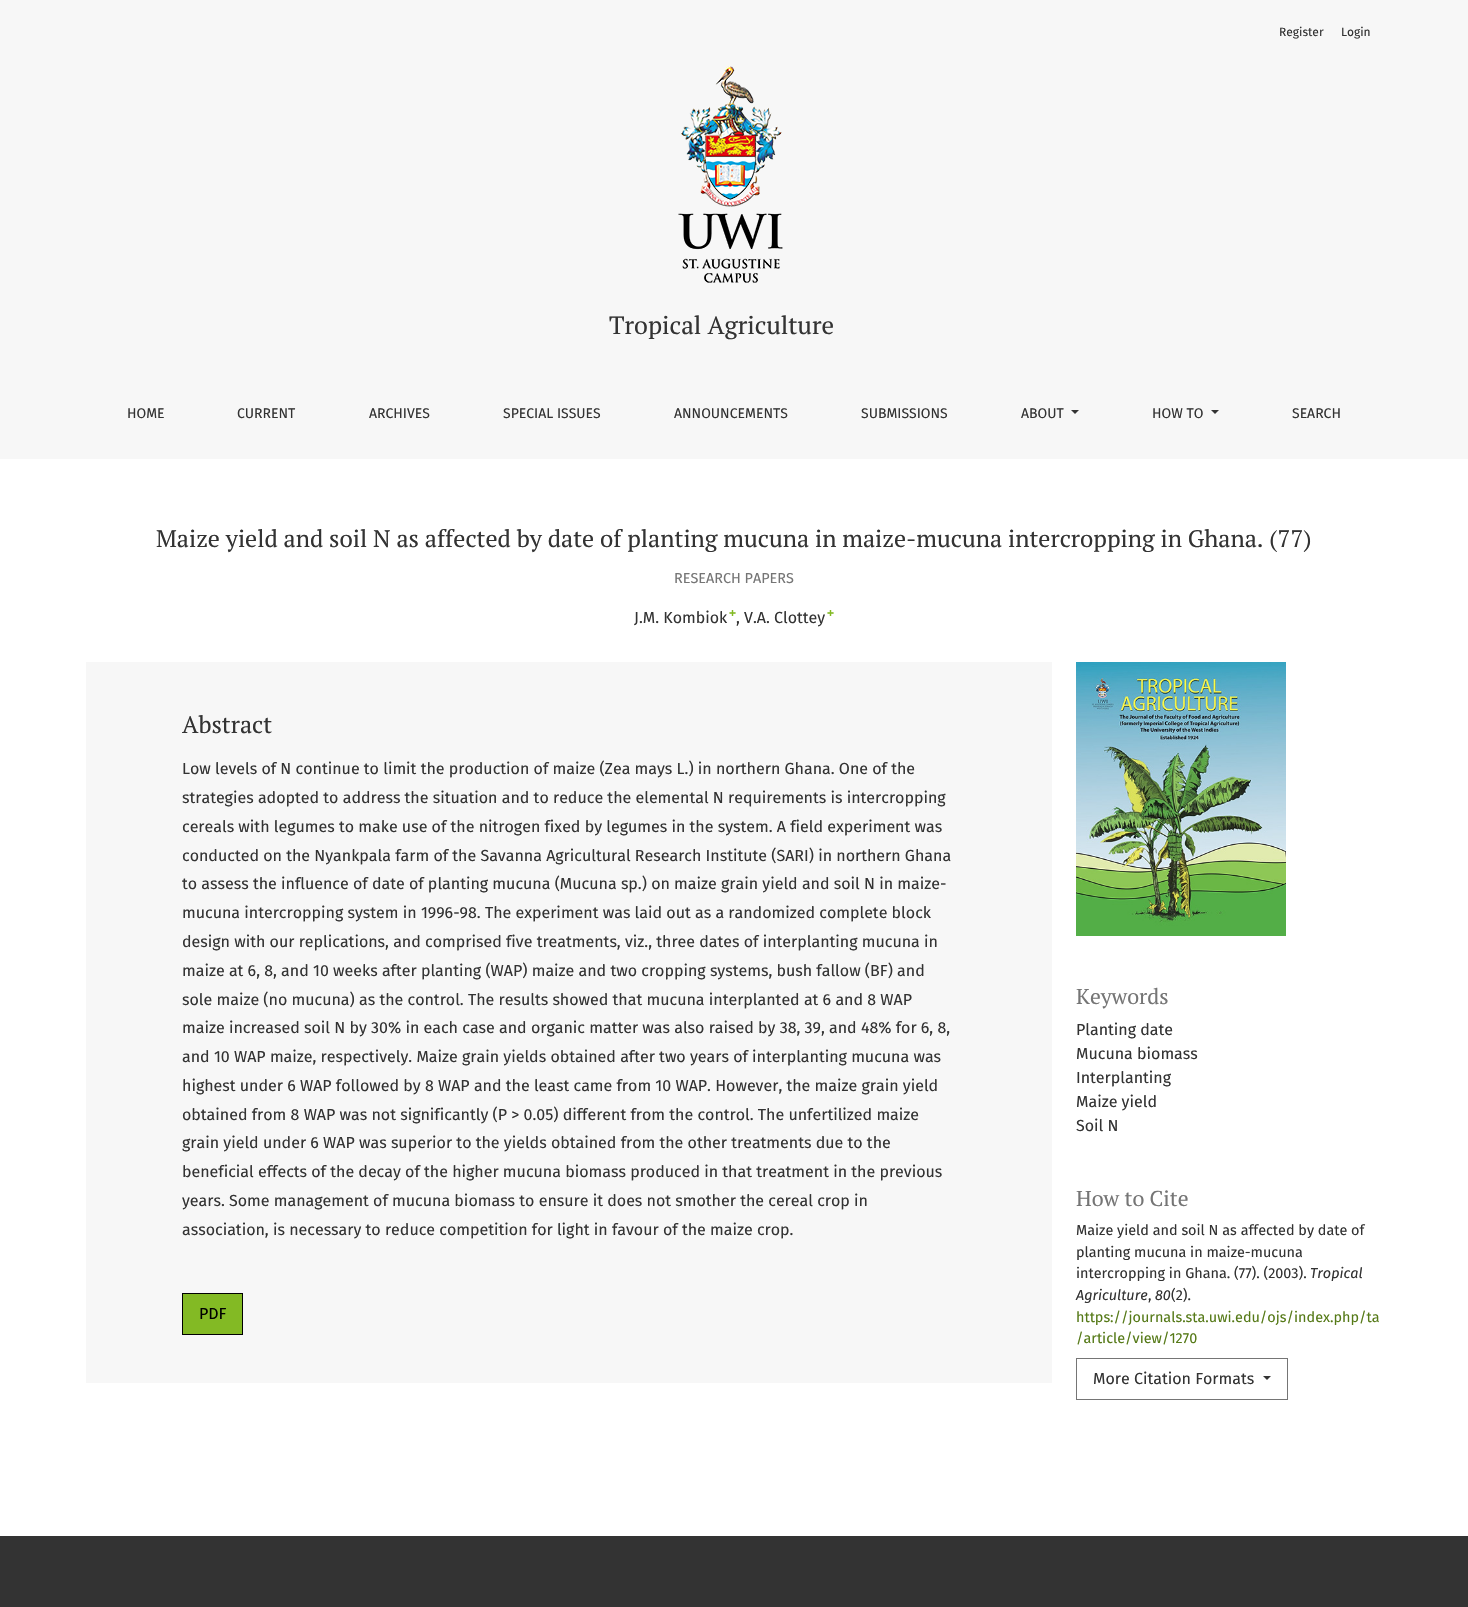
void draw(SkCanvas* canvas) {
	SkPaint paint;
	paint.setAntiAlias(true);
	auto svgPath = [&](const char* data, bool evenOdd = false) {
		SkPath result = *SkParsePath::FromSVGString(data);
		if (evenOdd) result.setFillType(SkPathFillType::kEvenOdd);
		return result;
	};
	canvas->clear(0xffffffff);
	paint.setColor(0xfff7f7f7);
	canvas->drawRect(SkRect::MakeXYWH(0, 0, 1468, 459), paint);
	SkFont f1(fontMgr->matchFamilyStyle("Fira Sans", SkFontStyle::Normal()), 12);
	f1.setSubpixel(true);
	paint.setColor(0xff333333);
	canvas->drawString("Register", 1279, 36, f1, paint);
	canvas->drawString("Login", 1341, 36, f1, paint);
	canvas->drawImageRect(SkImages::DeferredFromEncodedData(SkData::MakeFromFileName("img1.png")), SkRect::MakeXYWH(678, 66, 105, 217), SkSamplingOptions());
	SkFont f2(fontMgr->matchFamilyStyle("PT Serif", SkFontStyle::Normal()), 25);
	f2.setSubpixel(true);
	canvas->drawString("Tropical Agriculture", 609, 334, f2, paint);
	SkFont f3(fontMgr->matchFamilyStyle("Fira Sans", SkFontStyle::Normal()), 14);
	f3.setSubpixel(true);
	canvas->drawString("HOME", 127, 418, f3, paint);
	canvas->drawString("CURRENT", 237, 418, f3, paint);
	canvas->drawString("ARCHIVES", 369, 418, f3, paint);
	canvas->drawString("SPECIAL ISSUES", 503, 418, f3, paint);
	canvas->drawString("ANNOUNCEMENTS", 674, 418, f3, paint);
	canvas->drawString("SUBMISSIONS", 861, 418, f3, paint);
	canvas->drawString("ABOUT", 1021, 418, f3, paint);
	canvas->drawPath(svgPath("M1071 410H1079L1075 414Z"), paint);
	canvas->drawString("HOW TO", 1152, 418, f3, paint);
	canvas->drawPath(svgPath("M1211 410H1219L1215 414Z"), paint);
	canvas->drawString("SEARCH", 1292, 418, f3, paint);
	SkFont f4(fontMgr->matchFamilyStyle("PT Serif", SkFontStyle::Normal()), 24);
	f4.setSubpixel(true);
	canvas->drawString("Maize yield and soil N as affected by date of planting mucuna in maize-mucuna intercropping in Ghana. (77)", 156, 547, f4, paint);
	SkFont f5(fontMgr->matchFamilyStyle("Fira Sans", SkFontStyle::Normal()), 14.4);
	f5.setSubpixel(true);
	paint.setColor(0xff757575);
	canvas->drawString("RESEARCH PAPERS", 674, 583, f5, paint);
	SkFont f6(fontMgr->matchFamilyStyle("Fira Sans", SkFontStyle::Normal()), 16);
	f6.setSubpixel(true);
	paint.setColor(0xff333333);
	canvas->drawString("J.M. Kombiok", 634, 623, f6, paint);
	SkFont f7(fontMgr->matchFamilyStyle("Liberation Sans", SkFontStyle::Bold()), 12);
	f7.setSubpixel(true);
	paint.setColor(0xff83ba24);
	canvas->drawString("+", 729, 617, f7, paint);
	paint.setColor(0xff333333);
	canvas->drawString(", V.A. Clottey", 736, 623, f6, paint);
	paint.setColor(0xff83ba24);
	canvas->drawString("+", 827, 617, f7, paint);
	paint.setColor(0xfff7f7f7);
	canvas->drawRect(SkRect::MakeXYWH(86, 662, 966, 721), paint);
	paint.setColor(0xff333333);
	canvas->drawString("Abstract", 182, 733, f4, paint);
	canvas->drawString("Low levels of N continue to limit the production of maize (Zea mays L.) in northern Ghana. One of the", 182, 774, f6, paint);
	canvas->drawString("strategies adopted to address the situation and to reduce the elemental N requirements is intercropping", 182, 803, f6, paint);
	canvas->drawString("cereals with legumes to make use of the nitrogen fixed by legumes in the system. A field experiment was", 182, 832, f6, paint);
	canvas->drawString("conducted on the Nyankpala farm of the Savanna Agricultural Research Institute (SARI) in northern Ghana", 182, 861, f6, paint);
	canvas->drawString("to assess the influence of date of planting mucuna (Mucuna sp.) on maize grain yield and soil N in maize-", 182, 889, f6, paint);
	canvas->drawString("mucuna intercropping system in 1996-98. The experiment was laid out as a randomized complete block", 182, 918, f6, paint);
	canvas->drawString("design with our replications, and comprised five treatments, viz., three dates of interplanting mucuna in", 182, 947, f6, paint);
	canvas->drawString("maize at 6, 8, and 10 weeks after planting (WAP) maize and two cropping systems, bush fallow (BF) and", 182, 976, f6, paint);
	canvas->drawString("sole maize (no mucuna) as the control. The results showed that mucuna interplanted at 6 and 8 WAP", 182, 1005, f6, paint);
	canvas->drawString("maize increased soil N by 30% in each case and organic matter was also raised by 38, 39, and 48% for 6, 8,", 182, 1033, f6, paint);
	canvas->drawString("and 10 WAP maize, respectively. Maize grain yields obtained after two years of interplanting mucuna was", 182, 1062, f6, paint);
	canvas->drawString("highest under 6 WAP followed by 8 WAP and the least came from 10 WAP. However, the maize grain yield", 182, 1091, f6, paint);
	canvas->drawString("obtained from 8 WAP was not significantly (P > 0.05) different from the control. The unfertilized maize", 182, 1120, f6, paint);
	canvas->drawString("grain yield under 6 WAP was superior to the yields obtained from the other treatments due to the", 182, 1148, f6, paint);
	canvas->drawString("beneficial effects of the decay of the higher mucuna biomass produced in that treatment in the previous", 182, 1177, f6, paint);
	canvas->drawString("years. Some management of mucuna biomass to ensure it does not smother the cereal crop in", 182, 1206, f6, paint);
	canvas->drawString("association, is necessary to reduce competition for light in favour of the maize crop.", 182, 1235, f6, paint);
	paint.setColor(0xff83ba24);
	canvas->drawRect(SkRect::MakeXYWH(182.5, 1293.5, 60, 41), paint);
	paint.setStroke(true);
	paint.setStrokeWidth(1);
	paint.setColor(0xff000000);
	canvas->drawRect(SkRect::MakeXYWH(182.5, 1293.5, 60, 41), paint);
	paint.setStroke(false);
	canvas->drawString("PDF", 199, 1319, f6, paint);
	canvas->drawImageRect(SkImages::DeferredFromEncodedData(SkData::MakeFromFileName("img2.png")), SkRect::MakeXYWH(1076, 662, 210, 274), SkSamplingOptions());
	SkFont f8(fontMgr->matchFamilyStyle("PT Serif", SkFontStyle::Normal()), 21.5);
	f8.setSubpixel(true);
	paint.setColor(0xff757575);
	canvas->drawString("Keywords", 1076, 1004, f8, paint);
	paint.setColor(0xff333333);
	canvas->drawString("Planting date", 1076, 1035, f6, paint);
	canvas->drawString("Mucuna biomass", 1076, 1059, f6, paint);
	canvas->drawString("Interplanting", 1076, 1083, f6, paint);
	canvas->drawString("Maize yield", 1076, 1107, f6, paint);
	canvas->drawString("Soil N", 1076, 1131, f6, paint);
	paint.setColor(0xff757575);
	canvas->drawString("How to Cite", 1076, 1206, f8, paint);
	paint.setColor(0xff333333);
	canvas->drawString("Maize yield and soil N as affected by date of", 1076, 1235, f5, paint);
	canvas->drawString("planting mucuna in maize-mucuna", 1076, 1257, f5, paint);
	canvas->drawString("intercropping in Ghana. (77). (2003).", 1076, 1278, f5, paint);
	SkFont f9(fontMgr->matchFamilyStyle("Fira Sans", SkFontStyle::Italic()), 14.4);
	f9.setSubpixel(true);
	canvas->drawString("Tropical", 1310, 1278, f9, paint);
	canvas->drawString("Agriculture", 1076, 1300, f9, paint);
	canvas->drawString(",", 1148, 1300, f5, paint);
	canvas->drawString("80", 1155, 1300, f9, paint);
	canvas->drawString("(2).", 1171, 1300, f5, paint);
	paint.setColor(0xff567a18);
	canvas->drawString("https://journals.sta.uwi.edu/ojs/index.php/ta", 1076, 1322, f5, paint);
	canvas->drawString("/article/view/1270", 1076, 1343, f5, paint);
	paint.setStroke(true);
	paint.setColor(0xff757575);
	canvas->drawRect(SkRect::MakeXYWH(1076.5, 1358.5, 211, 41), paint);
	paint.setStroke(false);
	paint.setColor(0xff333333);
	canvas->drawString("More Citation Formats", 1093, 1384, f6, paint);
	canvas->drawPath(svgPath("M1263 1376H1271L1267 1380Z"), paint);
	canvas->drawRect(SkRect::MakeXYWH(0, 1536, 1468, 71), paint);
}
